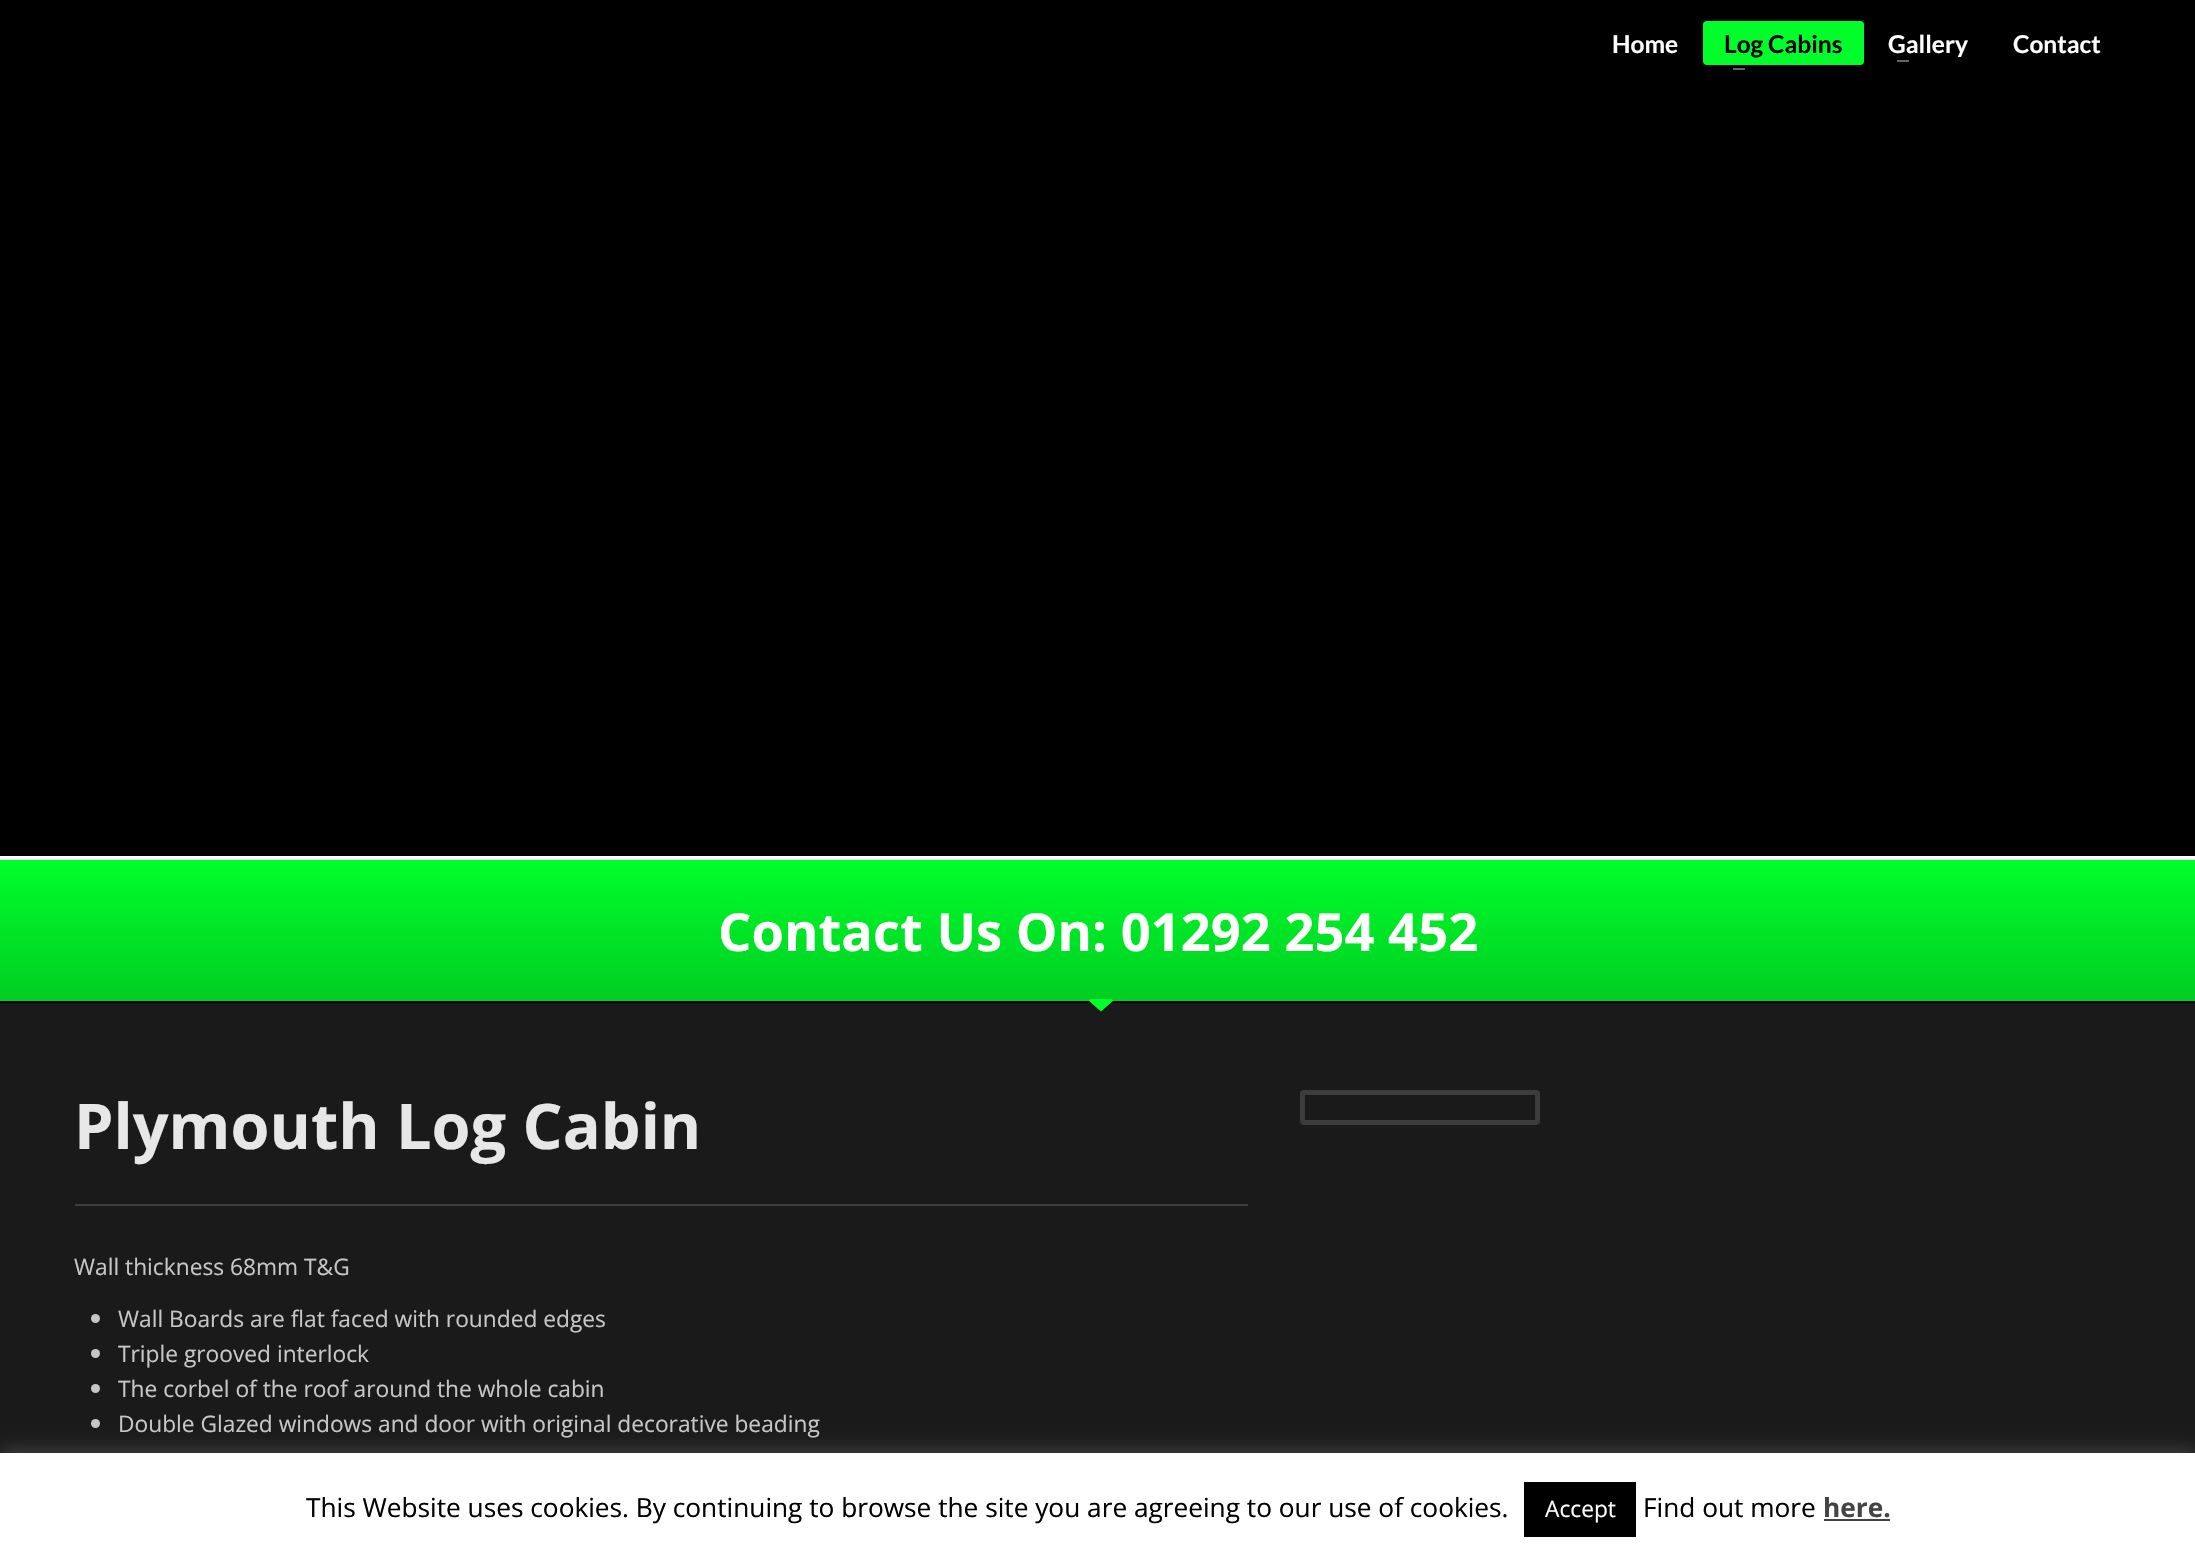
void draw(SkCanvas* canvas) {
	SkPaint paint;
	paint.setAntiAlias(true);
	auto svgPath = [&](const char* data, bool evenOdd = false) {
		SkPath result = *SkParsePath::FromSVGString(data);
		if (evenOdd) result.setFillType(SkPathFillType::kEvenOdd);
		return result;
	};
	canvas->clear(0xff1a1a1a);
	paint.setColor(0xff000000);
	canvas->drawRect(SkRect::MakeXYWH(0, 0, 2195, 856), paint);
	SkFont f1(fontMgr->matchFamilyStyle("Lato", SkFontStyle::Bold()), 24.5);
	f1.setSubpixel(true);
	paint.setColor(0xffffffff);
	canvas->drawString("Home", 1612, 53, f1, paint);
	paint.setColor(0xff00ff2a);
	canvas->drawRoundRect(SkRect::MakeXYWH(1703, 21, 161, 44), 4, 4, paint);
	paint.setColor(0xff000000);
	canvas->drawString("Log Cabins", 1724, 53, f1, paint);
	paint.setColor(0xff666666);
	canvas->drawRect(SkRect::MakeXYWH(1733, 68, 12, 2), paint);
	paint.setColor(0xffffffff);
	canvas->drawString("Gallery", 1888, 53, f1, paint);
	paint.setColor(0xff666666);
	canvas->drawRect(SkRect::MakeXYWH(1897, 60, 12, 2), paint);
	paint.setColor(0xffffffff);
	canvas->drawString("Contact", 2013, 53, f1, paint);
	{
		const SkColor colors[] = {0xff00ff2a, 0xff00cd22};
		const float stops[] = {0, 1};
		const SkPoint ends[] = {{1098, 859}, {1098, 1001}};
		paint.setShader(SkGradientShader::MakeLinear(ends, colors, stops, 2, SkTileMode::kClamp));
		paint.setAlpha(255);
	}
	canvas->drawRect(SkRect::MakeXYWH(0, 860, 2195, 141), paint);
	paint.setShader(nullptr);
	paint.setColor(0xffffffff);
	canvas->drawRect(SkRect::MakeXYWH(0, 856, 2195, 4), paint);
	paint.setColor(0xff000000);
	canvas->drawRect(SkRect::MakeXYWH(0, 1001, 2195, 2), paint);
	SkFont f2(fontMgr->matchFamilyStyle("Open Sans", SkFontStyle::Bold()), 52.5);
	f2.setSubpixel(true);
	paint.setColor(0xffffffff);
	canvas->drawString("Contact Us On: 01292 254 452", 718, 951, f2, paint);
	paint.setColor(0xff00ff2a);
	canvas->drawPath(svgPath("M1088.5 1000.5L1090.5 999H1111L1113.5 1000.5L1101 1011.5Z"), paint);
	paint.setColor(0xff3f3f3f);
	canvas->drawRect(SkRect::MakeXYWH(75, 1204, 1173, 2), paint);
	SkFont f3(fontMgr->matchFamilyStyle("Open Sans", SkFontStyle::Bold()), 63);
	f3.setSubpixel(true);
	paint.setColor(0xffe7e7e7);
	canvas->drawString("Plymouth Log Cabin", 74, 1149, f3, paint);
	SkFont f4(fontMgr->matchFamilyStyle("Open Sans", SkFontStyle::Normal()), 22.75);
	f4.setSubpixel(true);
	paint.setColor(0xffc6c6c6);
	canvas->drawString("Wall thickness 68mm T&G", 74, 1275, f4, paint);
	canvas->drawCircle(95.5, 1318.5, 4.5, paint);
	canvas->drawString("Wall Boards are flat faced with rounded edges", 118, 1327, f4, paint);
	canvas->drawCircle(95.5, 1353.5, 4.5, paint);
	canvas->drawString("Triple grooved interlock", 118, 1362, f4, paint);
	canvas->drawCircle(95.5, 1388.5, 4.5, paint);
	canvas->drawString("The corbel of the roof around the whole cabin", 118, 1397, f4, paint);
	canvas->drawCircle(95.5, 1423.5, 4.5, paint);
	canvas->drawString("Double Glazed windows and door with original decorative beading", 118, 1432, f4, paint);
	paint.setStroke(true);
	paint.setStrokeWidth(5);
	paint.setColor(0xff3c3c3c);
	canvas->drawRoundRect(SkRect::MakeXYWH(1302.5, 1092.5, 235, 30), 1.5, 1.5, paint);
	paint.setStroke(false);
	paint.setColor(0x4dacabab);
	paint.setMaskFilter(SkMaskFilter::MakeBlur(kNormal_SkBlurStyle, 9));
	canvas->drawRect(SkRect::MakeXYWH(0, 1451, 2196, 105), paint);
	paint.setMaskFilter(nullptr);
	paint.setColor(0xffffffff);
	canvas->drawRect(SkRect::MakeXYWH(0, 1453, 2195, 103), paint);
	SkFont f5(fontMgr->matchFamilyStyle("Open Sans", SkFontStyle::Normal()), 26.25);
	f5.setSubpixel(true);
	paint.setColor(0xff000000);
	canvas->drawString("This Website uses cookies. By continuing to browse the site you are agreeing to our use of cookies.", 306, 1517, f5, paint);
	canvas->drawRect(SkRect::MakeXYWH(1524, 1482, 112, 55), paint);
	paint.setColor(0xffffffff);
	canvas->drawString("Accept", 1545, 1517, f4, paint);
	paint.setColor(0xff000000);
	canvas->drawString("Find out more", 1643, 1517, f5, paint);
	SkFont f6(fontMgr->matchFamilyStyle("Open Sans", SkFontStyle::Bold()), 26.25);
	f6.setSubpixel(true);
	paint.setColor(0xff444444);
	canvas->drawString("here.", 1823, 1517, f6, paint);
	canvas->drawRect(SkRect::MakeXYWH(1824, 1519, 66, 2), paint);
}
